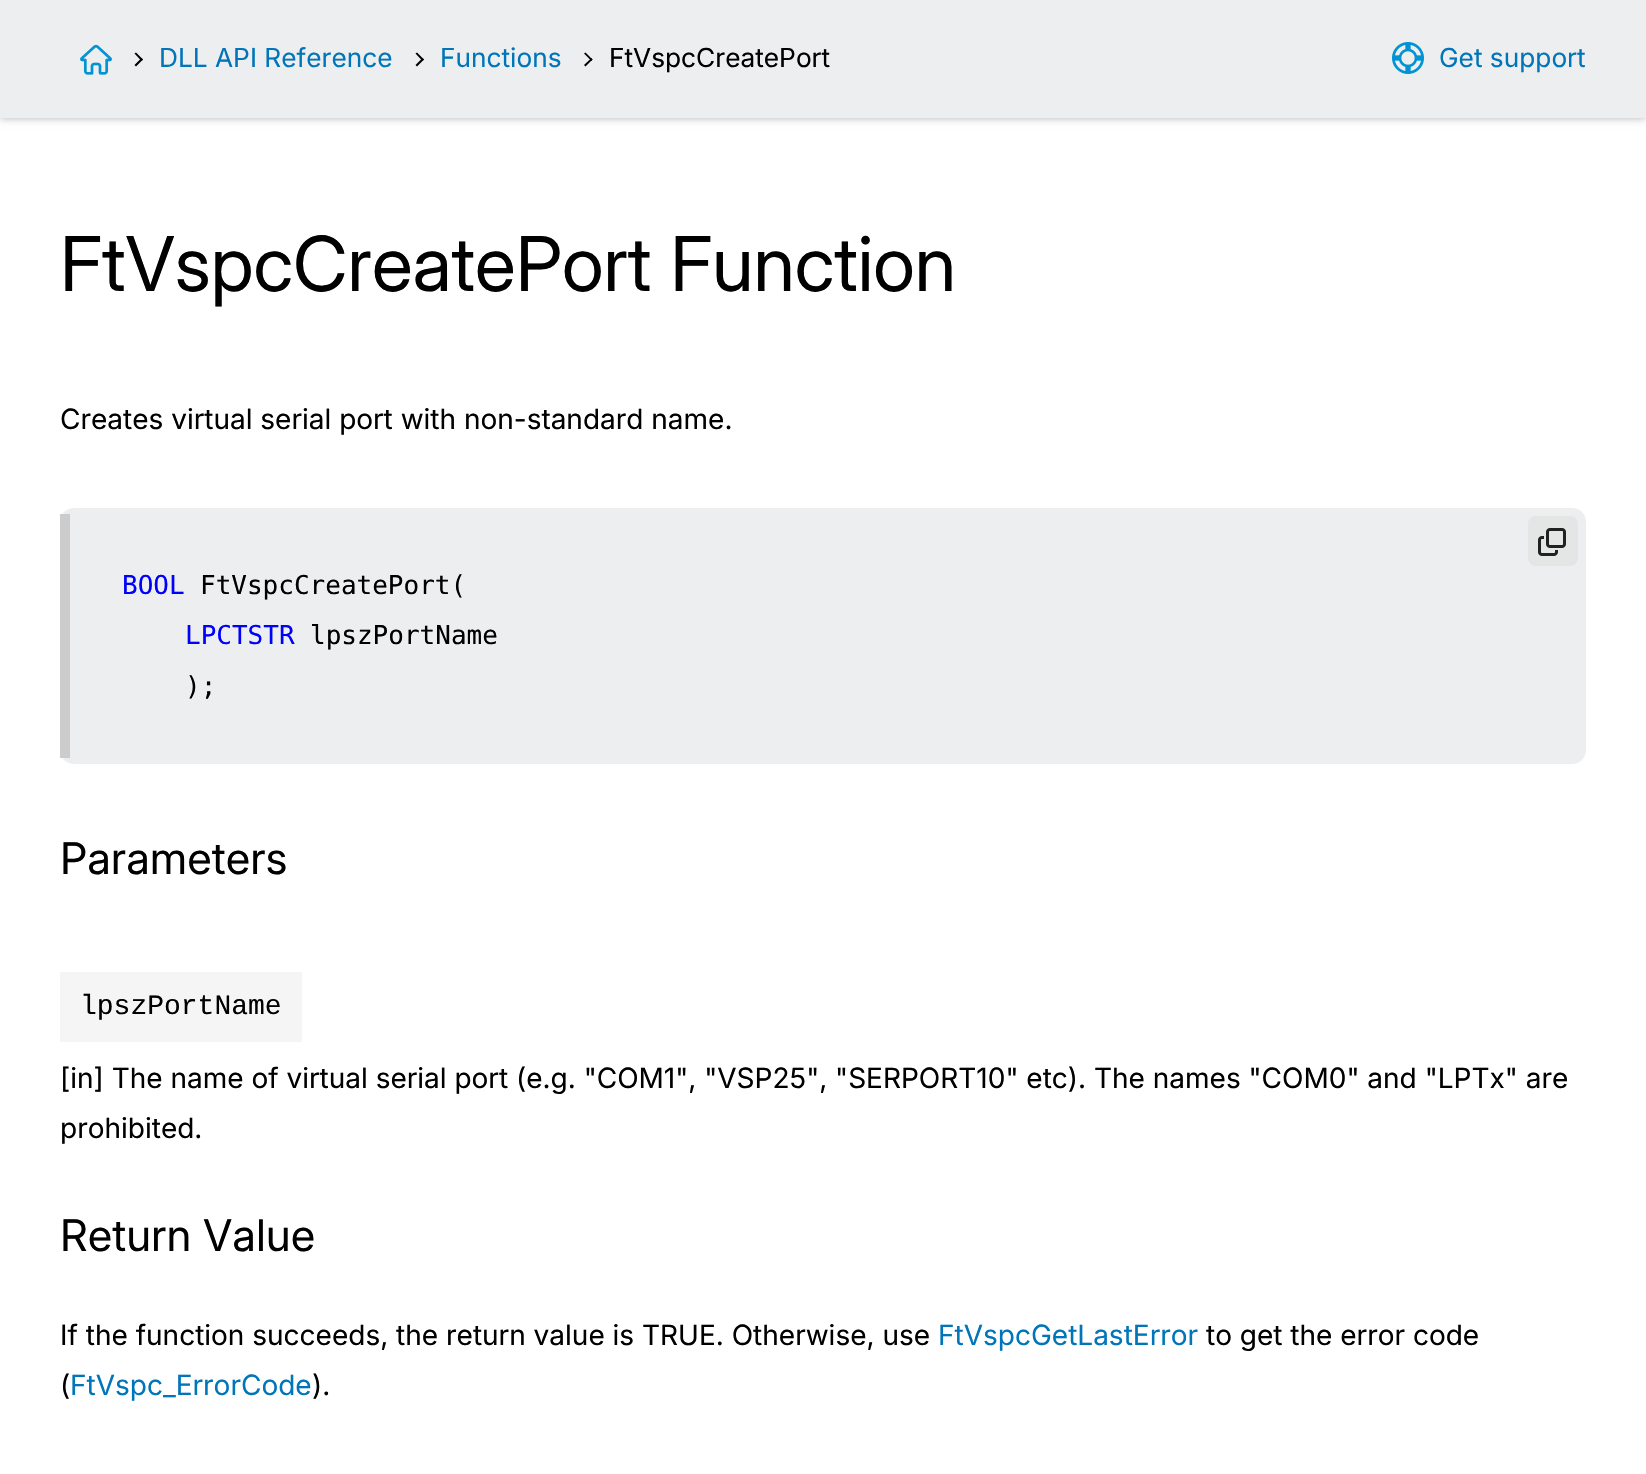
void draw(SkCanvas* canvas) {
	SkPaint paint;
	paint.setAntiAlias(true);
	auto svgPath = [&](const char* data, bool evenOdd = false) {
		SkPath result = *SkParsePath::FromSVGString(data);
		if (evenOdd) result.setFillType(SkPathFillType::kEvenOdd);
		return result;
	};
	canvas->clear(0xffffffff);
	paint.setColor(0x4d000000);
	paint.setMaskFilter(SkMaskFilter::MakeBlur(kNormal_SkBlurStyle, 4));
	canvas->drawRect(SkRect::MakeXYWH(0, 0, 1646, 118), paint);
	paint.setMaskFilter(nullptr);
	paint.setColor(0xffedeeef);
	canvas->drawRect(SkRect::MakeXYWH(0, 0, 1646, 118), paint);
	canvas->drawImageRect(SkImages::DeferredFromEncodedData(SkData::MakeFromFileName("img1.png")), SkRect::MakeXYWH(80, 44, 32, 31), SkSamplingOptions());
	paint.setColor(0xff000000);
	canvas->drawPath(svgPath("M134.5 53.5L136 52.5L143 59.5L141.5 61Z"), paint);
	canvas->drawPath(svgPath("M134.5 65L141.5 58L143 59.5L136 66.5Z"), paint);
	SkFont f1(fontMgr->matchFamilyStyle("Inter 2", SkFontStyle::Normal()), 26.25);
	f1.setSubpixel(true);
	paint.setColor(0xff0075b9);
	canvas->drawString("DLL API Reference", 159, 67, f1, paint);
	paint.setColor(0xff000000);
	canvas->drawPath(svgPath("M415.5 53.5L417 52.5L424 59.5L422.5 61Z"), paint);
	canvas->drawPath(svgPath("M415.5 65L422.5 58L424 59.5L417 66.5Z"), paint);
	paint.setColor(0xff0075b9);
	canvas->drawString("Functions", 440, 67, f1, paint);
	paint.setColor(0xff000000);
	canvas->drawPath(svgPath("M584 53.5L585.5 52.5L592.5 59.5L591.5 61Z"), paint);
	canvas->drawPath(svgPath("M584 65L591.5 58L592.5 59.5L585.5 66.5Z"), paint);
	canvas->drawString("FtVspcCreatePort", 609, 67, f1, paint);
	canvas->drawImageRect(SkImages::DeferredFromEncodedData(SkData::MakeFromFileName("img2.png")), SkRect::MakeXYWH(1392, 42, 32, 32), SkSamplingOptions());
	paint.setColor(0xff0075b9);
	canvas->drawString("Get support", 1439, 67, f1, paint);
	SkFont f2(fontMgr->matchFamilyStyle("Inter", SkFontStyle::Normal()), 75.6);
	f2.setSubpixel(true);
	paint.setColor(0xff000000);
	canvas->drawString("FtVspcCreatePort Function", 60, 291, f2, paint);
	SkFont f3(fontMgr->matchFamilyStyle("Inter 2", SkFontStyle::Normal()), 28);
	f3.setSubpixel(true);
	canvas->drawString("Creates virtual serial port with non-standard name.", 60, 429, f3, paint);
	paint.setColor(0xffedeeef);
	canvas->drawRoundRect(SkRect::MakeXYWH(60, 508, 1526, 256), 14, 14, paint);
	paint.setColor(0xffe4e5e5);
	canvas->drawRoundRect(SkRect::MakeXYWH(1528, 516, 50, 50), 8, 8, paint);
	canvas->drawImageRect(SkImages::DeferredFromEncodedData(SkData::MakeFromFileName("img3.png")), SkRect::MakeXYWH(1538, 528, 28, 28), SkSamplingOptions());
	paint.setColor(0xffcccccc);
	canvas->drawRect(SkRect::MakeXYWH(60, 514, 10, 244), paint);
	SkFont f4(fontMgr->matchFamilyStyle("DejaVu Sans Mono", SkFontStyle::Normal()), 26);
	f4.setSubpixel(true);
	paint.setColor(0xff0000ff);
	canvas->drawString("BOOL", 122, 594, f4, paint);
	paint.setColor(0xff000000);
	canvas->drawString("FtVspcCreatePort(", 200, 594, f4, paint);
	paint.setColor(0xff0000ff);
	canvas->drawString("LPCTSTR", 185, 644, f4, paint);
	paint.setColor(0xff000000);
	canvas->drawString("lpszPortName", 310, 644, f4, paint);
	canvas->drawString(");", 185, 695, f4, paint);
	SkFont f5(fontMgr->matchFamilyStyle("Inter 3", SkFontStyle::Normal()), 43.5);
	f5.setSubpixel(true);
	canvas->drawString("Parameters", 60, 874, f5, paint);
	paint.setColor(0xfff5f5f5);
	canvas->drawRect(SkRect::MakeXYWH(60, 972, 242, 70), paint);
	SkFont f6(fontMgr->matchFamilyStyle("Liberation Mono", SkFontStyle::Normal()), 28);
	f6.setSubpixel(true);
	paint.setColor(0xff000000);
	canvas->drawString("lpszPortName", 80, 1014, f6, paint);
	canvas->drawString("[in] The name of virtual serial port (e.g. \"COM1\", \"VSP25\", \"SERPORT10\" etc). The names \"COM0\" and \"LPTx\" are", 60, 1088, f3, paint);
	canvas->drawString("prohibited.", 60, 1138, f3, paint);
	canvas->drawString("Return Value", 60, 1251, f5, paint);
	canvas->drawString("If the function succeeds, the return value is TRUE. Otherwise, use", 60, 1345, f3, paint);
	paint.setColor(0xff0075b9);
	canvas->drawString("FtVspcGetLastError", 938, 1345, f3, paint);
	paint.setColor(0xff000000);
	canvas->drawString("to get the error code", 1206, 1345, f3, paint);
	canvas->drawString("(", 60, 1395, f3, paint);
	paint.setColor(0xff0075b9);
	canvas->drawString("FtVspc_ErrorCode", 70, 1395, f3, paint);
	paint.setColor(0xff000000);
	canvas->drawString(").", 312, 1395, f3, paint);
}
